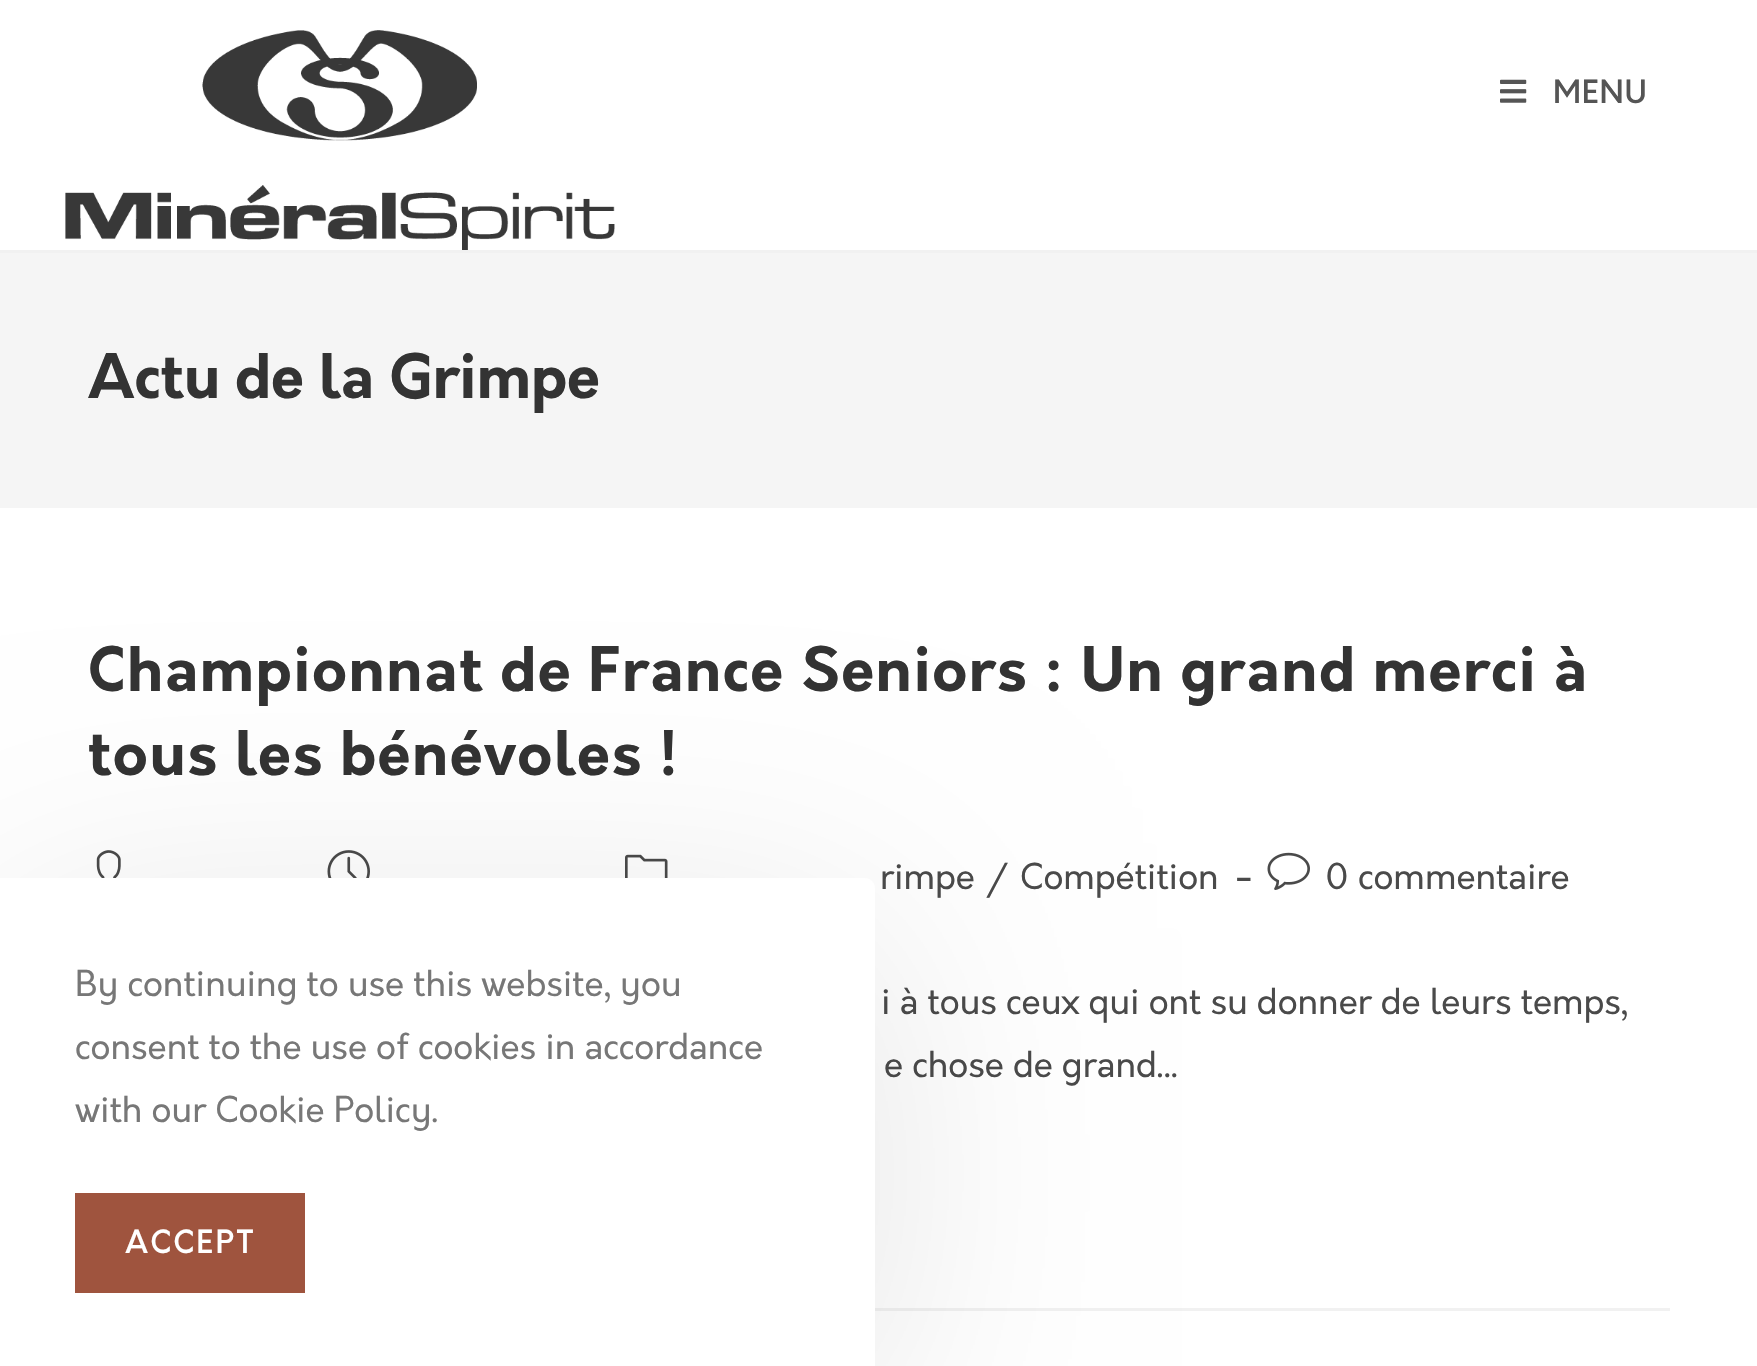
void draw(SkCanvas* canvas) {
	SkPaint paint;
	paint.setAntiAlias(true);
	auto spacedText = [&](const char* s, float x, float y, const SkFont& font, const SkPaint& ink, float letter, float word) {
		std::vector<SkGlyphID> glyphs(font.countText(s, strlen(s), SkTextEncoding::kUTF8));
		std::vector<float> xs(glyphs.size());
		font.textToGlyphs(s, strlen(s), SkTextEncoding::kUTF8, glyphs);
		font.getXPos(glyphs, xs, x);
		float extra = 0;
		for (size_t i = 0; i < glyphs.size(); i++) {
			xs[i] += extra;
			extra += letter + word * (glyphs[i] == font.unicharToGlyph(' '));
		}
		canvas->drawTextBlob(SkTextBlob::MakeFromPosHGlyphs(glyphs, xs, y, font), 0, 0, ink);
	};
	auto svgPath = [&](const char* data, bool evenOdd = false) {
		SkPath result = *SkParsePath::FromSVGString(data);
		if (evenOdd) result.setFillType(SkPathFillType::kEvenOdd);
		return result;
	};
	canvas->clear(0xffffffff);
	paint.setColor(0xfff1f1f1);
	canvas->drawRect(SkRect::MakeXYWH(0, 250, 1757, 3), paint);
	canvas->drawImageRect(SkImages::DeferredFromEncodedData(SkData::MakeFromFileName("img1.png")), SkRect::MakeXYWH(65, 30, 550, 220), SkSamplingOptions());
	canvas->drawImageRect(SkImages::DeferredFromEncodedData(SkData::MakeFromFileName("img2.png")), SkRect::MakeXYWH(1500, 79, 27, 24), SkSamplingOptions());
	SkFont f1(fontMgr->matchFamilyStyle("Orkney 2", SkFontStyle::Bold()), 30);
	f1.setSubpixel(true);
	paint.setColor(0xff555555);
	spacedText("MENU", 1553, 103, f1, paint, 1.5, 0);
	paint.setColor(0xfff5f5f5);
	canvas->drawRect(SkRect::MakeXYWH(0, 253, 1757, 255), paint);
	SkFont f2(fontMgr->matchFamilyStyle("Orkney", SkFontStyle::Bold()), 60);
	f2.setSubpixel(true);
	paint.setColor(0xff333333);
	canvas->drawString("Actu de la Grimpe", 88, 398, f2, paint);
	paint.setColor(0xfff1f1f1);
	canvas->drawRect(SkRect::MakeXYWH(875, 1308, 795, 3), paint);
	paint.setColor(0xff333333);
	spacedText("Championnat de France Seniors : Un grand merci à", 88, 691, f2, paint, 1.5, 0);
	spacedText("tous les bénévoles !", 88, 775, f2, paint, 1.5, 0);
	canvas->drawImageRect(SkImages::DeferredFromEncodedData(SkData::MakeFromFileName("img3.png")), SkRect::MakeXYWH(96, 850, 25, 28), SkSamplingOptions());
	canvas->drawImageRect(SkImages::DeferredFromEncodedData(SkData::MakeFromFileName("img4.png")), SkRect::MakeXYWH(327, 850, 43, 28), SkSamplingOptions());
	canvas->drawImageRect(SkImages::DeferredFromEncodedData(SkData::MakeFromFileName("img5.png")), SkRect::MakeXYWH(625, 854, 43, 24), SkSamplingOptions());
	SkFont f3(fontMgr->matchFamilyStyle("Orkney", SkFontStyle::Normal()), 35);
	f3.setSubpixel(true);
	paint.setColor(0xff4a4a4a);
	canvas->drawString("rimpe", 880, 889, f3, paint);
	canvas->drawString("/", 987, 889, f3, paint);
	canvas->drawString("Compétition", 1020, 889, f3, paint);
	SkFont f4(fontMgr->matchFamilyStyle("Orkney 2", SkFontStyle::Bold()), 35);
	f4.setSubpixel(true);
	canvas->drawString("-", 1234, 889, f4, paint);
	canvas->drawImageRect(SkImages::DeferredFromEncodedData(SkData::MakeFromFileName("img6.png")), SkRect::MakeXYWH(1267, 852, 43, 38), SkSamplingOptions());
	canvas->drawString("0 commentaire", 1325, 889, f3, paint);
	canvas->drawString("i à tous ceux qui ont su donner de leurs temps,", 881, 1014, f3, paint);
	canvas->drawString("e chose de grand…", 884, 1077, f3, paint);
	paint.setColor(0x1a000000);
	paint.setMaskFilter(SkMaskFilter::MakeBlur(kNormal_SkBlurStyle, 187.5));
	canvas->drawRoundRect(SkRect::MakeXYWH(0, 928, 875, 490), 10, 10, paint);
	paint.setMaskFilter(nullptr);
	paint.setColor(0xffffffff);
	canvas->drawPath(svgPath("M0 878H865C870.5 878 875 882.5 875 888V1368H0Z"), paint);
	paint.setColor(0xff777777);
	canvas->drawString("By continuing to use this website, you", 75, 996, f3, paint);
	canvas->drawString("consent to the use of cookies in accordance", 75, 1059, f3, paint);
	canvas->drawString("with our Cookie Policy.", 75, 1122, f3, paint);
	paint.setColor(0xff9f543e);
	canvas->drawRect(SkRect::MakeXYWH(75, 1193, 230, 100), paint);
	paint.setColor(0xffffffff);
	spacedText("ACCEPT", 125, 1253, f1, paint, 3, 0);
}
